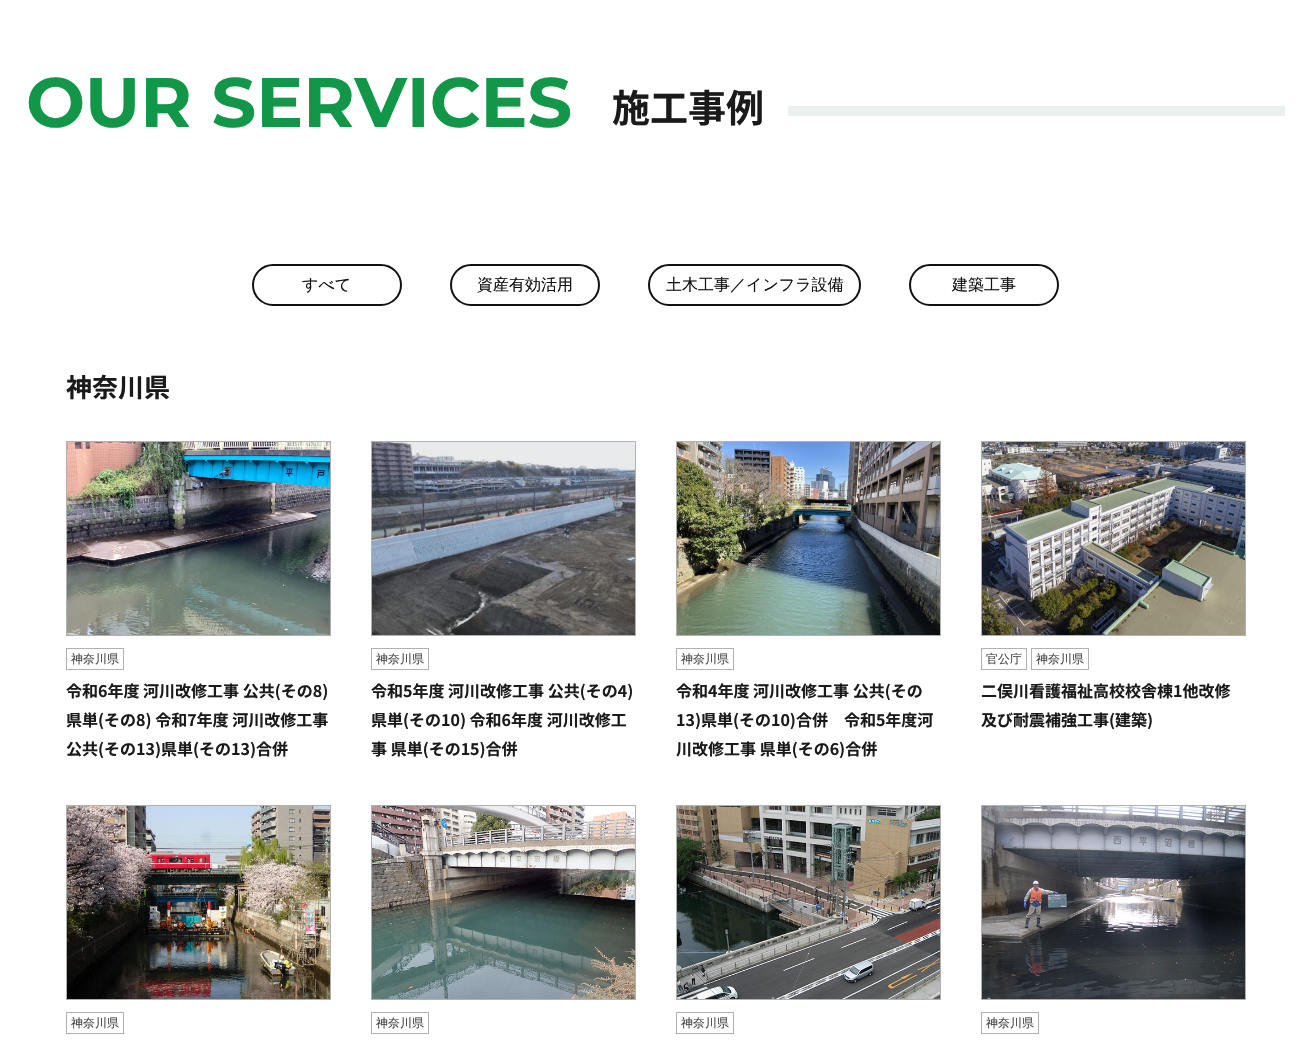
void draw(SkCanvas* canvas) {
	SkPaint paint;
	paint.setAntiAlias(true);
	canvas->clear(0xffffffff);
	SkFont f1(fontMgr->matchFamilyStyle("Montserrat", SkFontStyle(100, SkFontStyle::kNormal_Width, SkFontStyle::kUpright_Slant)), 70);
	f1.setSubpixel(true);
	paint.setColor(0xff129647);
	canvas->drawString("OUR SERVICES", 26, 127, f1, paint);
	SkFont f2(fontMgr->matchFamilyStyle("Noto Sans JP", SkFontStyle::Bold()), 38);
	f2.setSubpixel(true);
	paint.setColor(0xff1a1a1a);
	canvas->drawString("施工事例", 612, 122, f2, paint);
	paint.setColor(0xffebefed);
	canvas->drawRect(SkRect::MakeXYWH(788, 106, 497, 10), paint);
	paint.setStroke(true);
	paint.setStrokeWidth(2);
	paint.setColor(0xff111111);
	canvas->drawRoundRect(SkRect::MakeXYWH(253, 265, 148, 40), 20, 20, paint);
	SkFont f3(fontMgr->matchFamilyStyle("WenQuanYi Zen Hei", SkFontStyle(500, SkFontStyle::kNormal_Width, SkFontStyle::kUpright_Slant)), 16);
	f3.setSubpixel(true);
	paint.setStroke(false);
	canvas->drawString("すべて", 302, 290, f3, paint);
	paint.setStroke(true);
	canvas->drawRoundRect(SkRect::MakeXYWH(451, 265, 148, 40), 20, 20, paint);
	paint.setStroke(false);
	canvas->drawString("資産有効活用", 477, 290, f3, paint);
	paint.setStroke(true);
	canvas->drawRoundRect(SkRect::MakeXYWH(649, 265, 211, 40), 20, 20, paint);
	paint.setStroke(false);
	canvas->drawString("土木工事／インフラ設備", 666, 290, f3, paint);
	paint.setStroke(true);
	canvas->drawRoundRect(SkRect::MakeXYWH(910, 265, 148, 40), 20, 20, paint);
	paint.setStroke(false);
	canvas->drawString("建築工事", 952, 290, f3, paint);
	SkFont f4(fontMgr->matchFamilyStyle("Noto Sans JP", SkFontStyle::Bold()), 26);
	f4.setSubpixel(true);
	paint.setColor(0xff1a1a1a);
	canvas->drawString("神奈川県", 66, 397, f4, paint);
	paint.setStroke(true);
	paint.setStrokeWidth(1);
	paint.setColor(0xffb1b1b1);
	canvas->drawRect(SkRect::MakeXYWH(66.5, 441.5, 264, 194), paint);
	canvas->drawImageRect(SkImages::DeferredFromEncodedData(SkData::MakeFromFileName("img1.png")), SkRect::MakeXYWH(67, 442, 263, 193), SkSamplingOptions());
	canvas->drawRect(SkRect::MakeXYWH(66.5, 648.5, 57, 21), paint);
	SkFont f5(fontMgr->matchFamilyStyle("WenQuanYi Zen Hei", SkFontStyle(500, SkFontStyle::kNormal_Width, SkFontStyle::kUpright_Slant)), 12);
	f5.setSubpixel(true);
	paint.setStroke(false);
	paint.setColor(0xff454545);
	canvas->drawString("神奈川県", 71, 663, f5, paint);
	SkFont f6(fontMgr->matchFamilyStyle("Noto Sans JP", SkFontStyle::Bold()), 16);
	f6.setSubpixel(true);
	paint.setColor(0xff1a1a1a);
	canvas->drawString("令和6年度 河川改修工事 公共(その8)", 66, 697, f6, paint);
	canvas->drawString("県単(その8) 令和7年度 河川改修工事", 66, 726, f6, paint);
	canvas->drawString("公共(その13)県単(その13)合併", 66, 755, f6, paint);
	paint.setStroke(true);
	paint.setColor(0xffb1b1b1);
	canvas->drawRect(SkRect::MakeXYWH(371.5, 441.5, 264, 194), paint);
	canvas->drawImageRect(SkImages::DeferredFromEncodedData(SkData::MakeFromFileName("img2.png")), SkRect::MakeXYWH(372, 442, 263, 193), SkSamplingOptions());
	canvas->drawRect(SkRect::MakeXYWH(371.5, 648.5, 57, 21), paint);
	paint.setStroke(false);
	paint.setColor(0xff454545);
	canvas->drawString("神奈川県", 376, 663, f5, paint);
	paint.setColor(0xff1a1a1a);
	canvas->drawString("令和5年度 河川改修工事 公共(その4)", 371, 697, f6, paint);
	canvas->drawString("県単(その10) 令和6年度 河川改修工", 371, 726, f6, paint);
	canvas->drawString("事 県単(その15)合併", 371, 755, f6, paint);
	paint.setStroke(true);
	paint.setColor(0xffb1b1b1);
	canvas->drawRect(SkRect::MakeXYWH(676.5, 441.5, 264, 194), paint);
	canvas->drawImageRect(SkImages::DeferredFromEncodedData(SkData::MakeFromFileName("img3.png")), SkRect::MakeXYWH(677, 442, 263, 193), SkSamplingOptions());
	canvas->drawRect(SkRect::MakeXYWH(676.5, 648.5, 57, 21), paint);
	paint.setStroke(false);
	paint.setColor(0xff454545);
	canvas->drawString("神奈川県", 681, 663, f5, paint);
	paint.setColor(0xff1a1a1a);
	canvas->drawString("令和4年度 河川改修工事 公共(その", 676, 697, f6, paint);
	canvas->drawString("13)県単(その10)合併　令和5年度河", 676, 726, f6, paint);
	canvas->drawString("川改修工事 県単(その6)合併", 676, 755, f6, paint);
	paint.setStroke(true);
	paint.setColor(0xffb1b1b1);
	canvas->drawRect(SkRect::MakeXYWH(981.5, 441.5, 264, 194), paint);
	canvas->drawImageRect(SkImages::DeferredFromEncodedData(SkData::MakeFromFileName("img4.png")), SkRect::MakeXYWH(982, 442, 263, 193), SkSamplingOptions());
	canvas->drawRect(SkRect::MakeXYWH(981.5, 648.5, 45, 21), paint);
	paint.setStroke(false);
	paint.setColor(0xff454545);
	canvas->drawString("官公庁", 986, 663, f5, paint);
	paint.setStroke(true);
	paint.setColor(0xffb1b1b1);
	canvas->drawRect(SkRect::MakeXYWH(1031.5, 648.5, 57, 21), paint);
	paint.setStroke(false);
	paint.setColor(0xff454545);
	canvas->drawString("神奈川県", 1036, 663, f5, paint);
	paint.setColor(0xff1a1a1a);
	canvas->drawString("二俣川看護福祉高校校舎棟1他改修", 981, 697, f6, paint);
	canvas->drawString("及び耐震補強工事(建築)", 981, 726, f6, paint);
	paint.setStroke(true);
	paint.setColor(0xffb1b1b1);
	canvas->drawRect(SkRect::MakeXYWH(66.5, 805.5, 264, 194), paint);
	canvas->drawImageRect(SkImages::DeferredFromEncodedData(SkData::MakeFromFileName("img5.png")), SkRect::MakeXYWH(67, 806, 263, 193), SkSamplingOptions());
	canvas->drawRect(SkRect::MakeXYWH(66.5, 1012.5, 57, 21), paint);
	paint.setStroke(false);
	paint.setColor(0xff454545);
	canvas->drawString("神奈川県", 71, 1027, f5, paint);
	paint.setStroke(true);
	paint.setColor(0xffb1b1b1);
	canvas->drawRect(SkRect::MakeXYWH(371.5, 805.5, 264, 194), paint);
	canvas->drawImageRect(SkImages::DeferredFromEncodedData(SkData::MakeFromFileName("img6.png")), SkRect::MakeXYWH(372, 806, 263, 193), SkSamplingOptions());
	canvas->drawRect(SkRect::MakeXYWH(371.5, 1012.5, 57, 21), paint);
	paint.setStroke(false);
	paint.setColor(0xff454545);
	canvas->drawString("神奈川県", 376, 1027, f5, paint);
	paint.setStroke(true);
	paint.setColor(0xffb1b1b1);
	canvas->drawRect(SkRect::MakeXYWH(676.5, 805.5, 264, 194), paint);
	canvas->drawImageRect(SkImages::DeferredFromEncodedData(SkData::MakeFromFileName("img7.png")), SkRect::MakeXYWH(677, 806, 263, 193), SkSamplingOptions());
	canvas->drawRect(SkRect::MakeXYWH(676.5, 1012.5, 57, 21), paint);
	paint.setStroke(false);
	paint.setColor(0xff454545);
	canvas->drawString("神奈川県", 681, 1027, f5, paint);
	paint.setStroke(true);
	paint.setColor(0xffb1b1b1);
	canvas->drawRect(SkRect::MakeXYWH(981.5, 805.5, 264, 194), paint);
	canvas->drawImageRect(SkImages::DeferredFromEncodedData(SkData::MakeFromFileName("img8.png")), SkRect::MakeXYWH(982, 806, 263, 193), SkSamplingOptions());
	canvas->drawRect(SkRect::MakeXYWH(981.5, 1012.5, 57, 21), paint);
	paint.setStroke(false);
	paint.setColor(0xff454545);
	canvas->drawString("神奈川県", 986, 1027, f5, paint);
}
